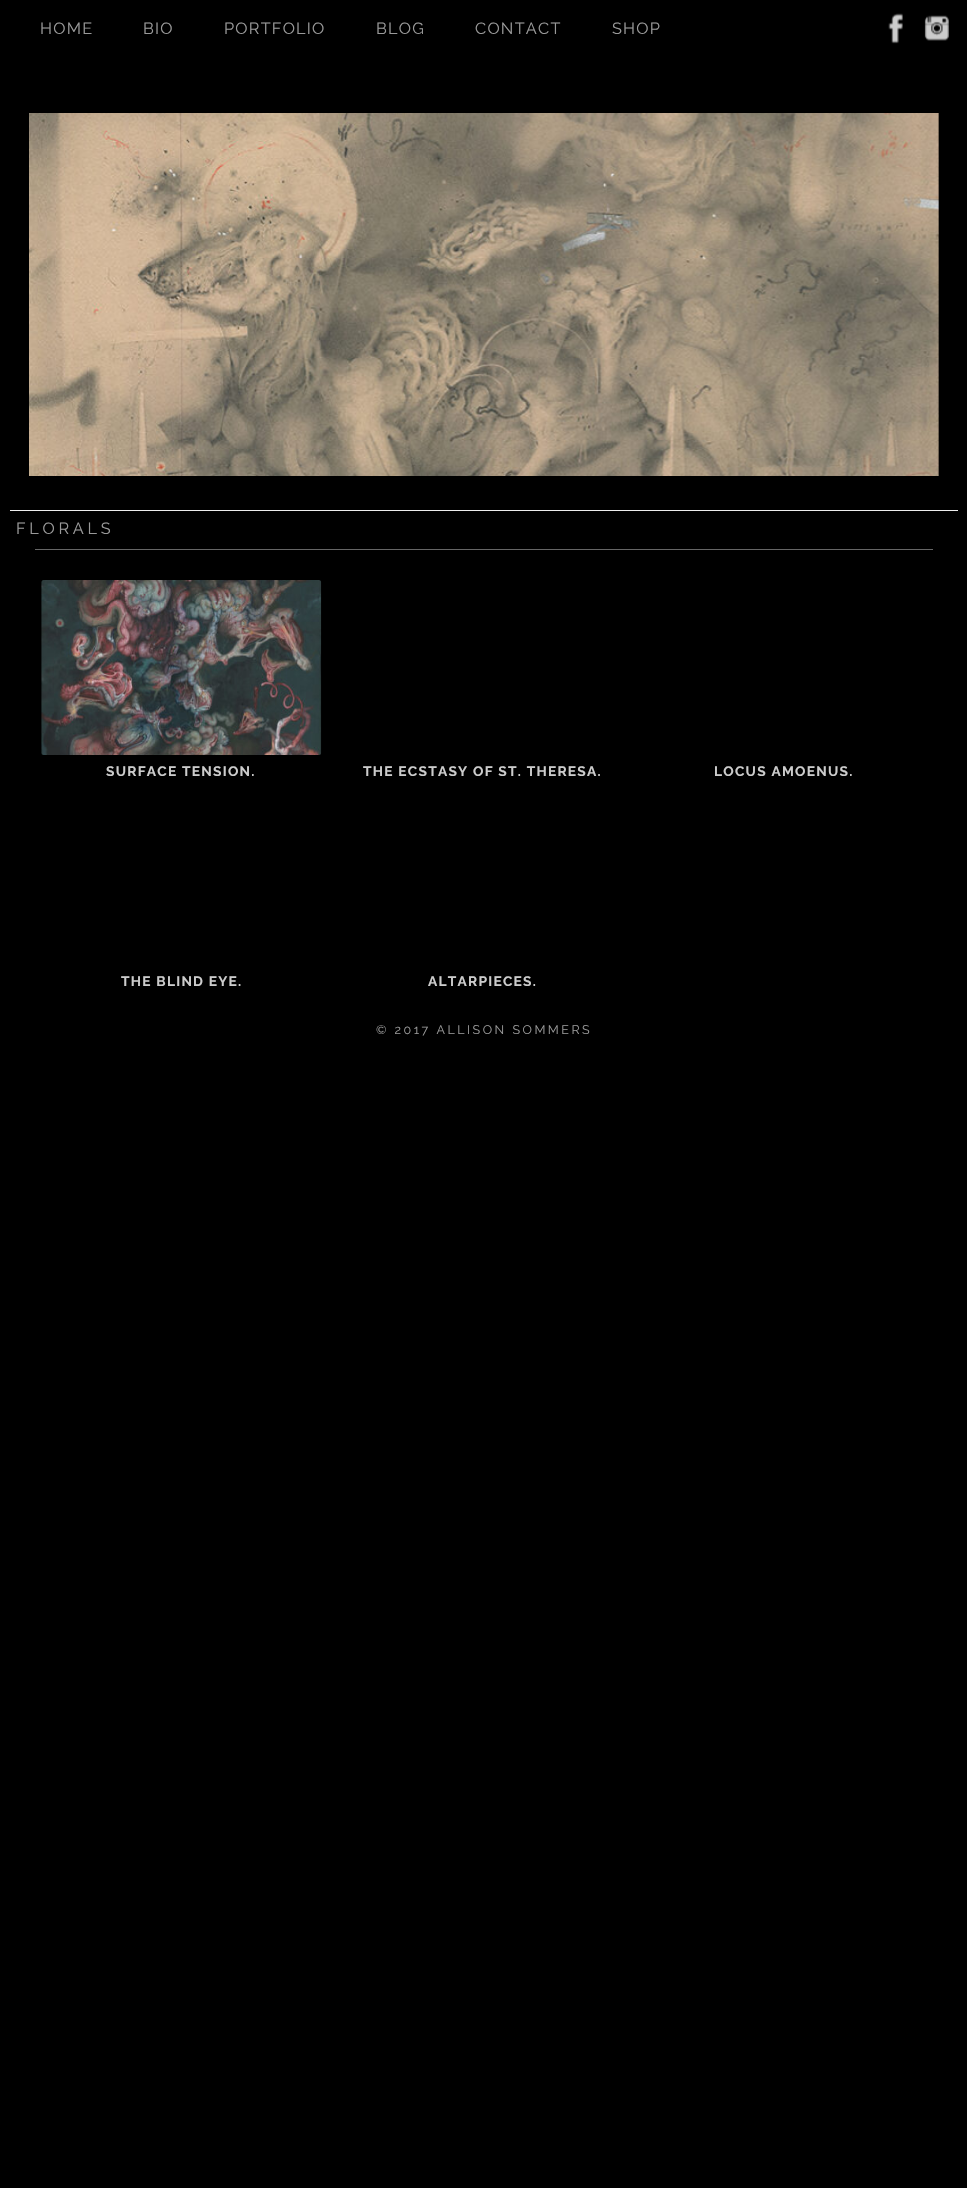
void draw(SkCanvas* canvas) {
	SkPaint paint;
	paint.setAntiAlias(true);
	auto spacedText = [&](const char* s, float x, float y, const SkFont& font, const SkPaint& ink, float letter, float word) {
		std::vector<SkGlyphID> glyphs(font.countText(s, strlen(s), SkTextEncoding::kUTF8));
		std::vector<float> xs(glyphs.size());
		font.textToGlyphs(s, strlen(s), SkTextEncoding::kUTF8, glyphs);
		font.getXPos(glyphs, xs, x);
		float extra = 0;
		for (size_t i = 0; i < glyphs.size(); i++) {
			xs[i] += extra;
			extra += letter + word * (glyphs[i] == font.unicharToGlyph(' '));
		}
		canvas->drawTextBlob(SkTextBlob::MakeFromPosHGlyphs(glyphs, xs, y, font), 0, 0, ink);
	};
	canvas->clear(0xff000000);
	SkFont f1(fontMgr->matchFamilyStyle("Raleway", SkFontStyle::Normal()), 16.25);
	f1.setSubpixel(true);
	paint.setColor(0xff999999);
	spacedText("HOME", 40, 34, f1, paint, 1.25, 0);
	spacedText("BIO", 143, 34, f1, paint, 1.25, 0);
	spacedText("PORTFOLIO", 224, 34, f1, paint, 1.25, 0);
	spacedText("BLOG", 376, 34, f1, paint, 1.25, 0);
	spacedText("CONTACT", 475, 34, f1, paint, 1.25, 0);
	spacedText("SHOP", 612, 34, f1, paint, 1.25, 0);
	canvas->drawImageRect(SkImages::DeferredFromEncodedData(SkData::MakeFromFileName("img1.png")), SkRect::MakeXYWH(888, 13, 15, 31), SkSamplingOptions());
	canvas->drawImageRect(SkImages::DeferredFromEncodedData(SkData::MakeFromFileName("img2.png")), SkRect::MakeXYWH(924, 15, 25, 26), SkSamplingOptions());
	canvas->drawImageRect(SkImages::DeferredFromEncodedData(SkData::MakeFromFileName("img3.png")), SkRect::MakeXYWH(29, 113, 910, 363), SkSamplingOptions());
	paint.setColor(0xffeeeeee);
	canvas->drawRect(SkRect::MakeXYWH(10, 510, 948, 1), paint);
	paint.setColor(0xff999999);
	spacedText("FLORALS", 16, 534, f1, paint, 3.75, 0);
	paint.setColor(0xff666666);
	canvas->drawRect(SkRect::MakeXYWH(35, 549, 898, 1), paint);
	canvas->drawImageRect(SkImages::DeferredFromEncodedData(SkData::MakeFromFileName("img4.png")), SkRect::MakeXYWH(41, 580, 281, 175), SkSamplingOptions());
	SkFont f2(fontMgr->matchFamilyStyle("Raleway", SkFontStyle::Bold()), 13.75);
	f2.setSubpixel(true);
	paint.setColor(0xffcccccc);
	spacedText("SURFACE TENSION.", 106, 776, f2, paint, 1.25, 0);
	spacedText("THE ECSTASY OF ST. THERESA.", 363, 776, f2, paint, 1.25, 0);
	spacedText("LOCUS AMOENUS.", 714, 776, f2, paint, 1.25, 0);
	spacedText("THE BLIND EYE.", 121, 986, f2, paint, 1.25, 0);
	spacedText("ALTARPIECES.", 428, 986, f2, paint, 1.25, 0);
	SkFont f3(fontMgr->matchFamilyStyle("Raleway", SkFontStyle::Normal()), 12.5);
	f3.setSubpixel(true);
	paint.setColor(0xff999999);
	spacedText("© 2017 ALLISON SOMMERS", 376, 1034, f3, paint, 2.5, 0);
}
